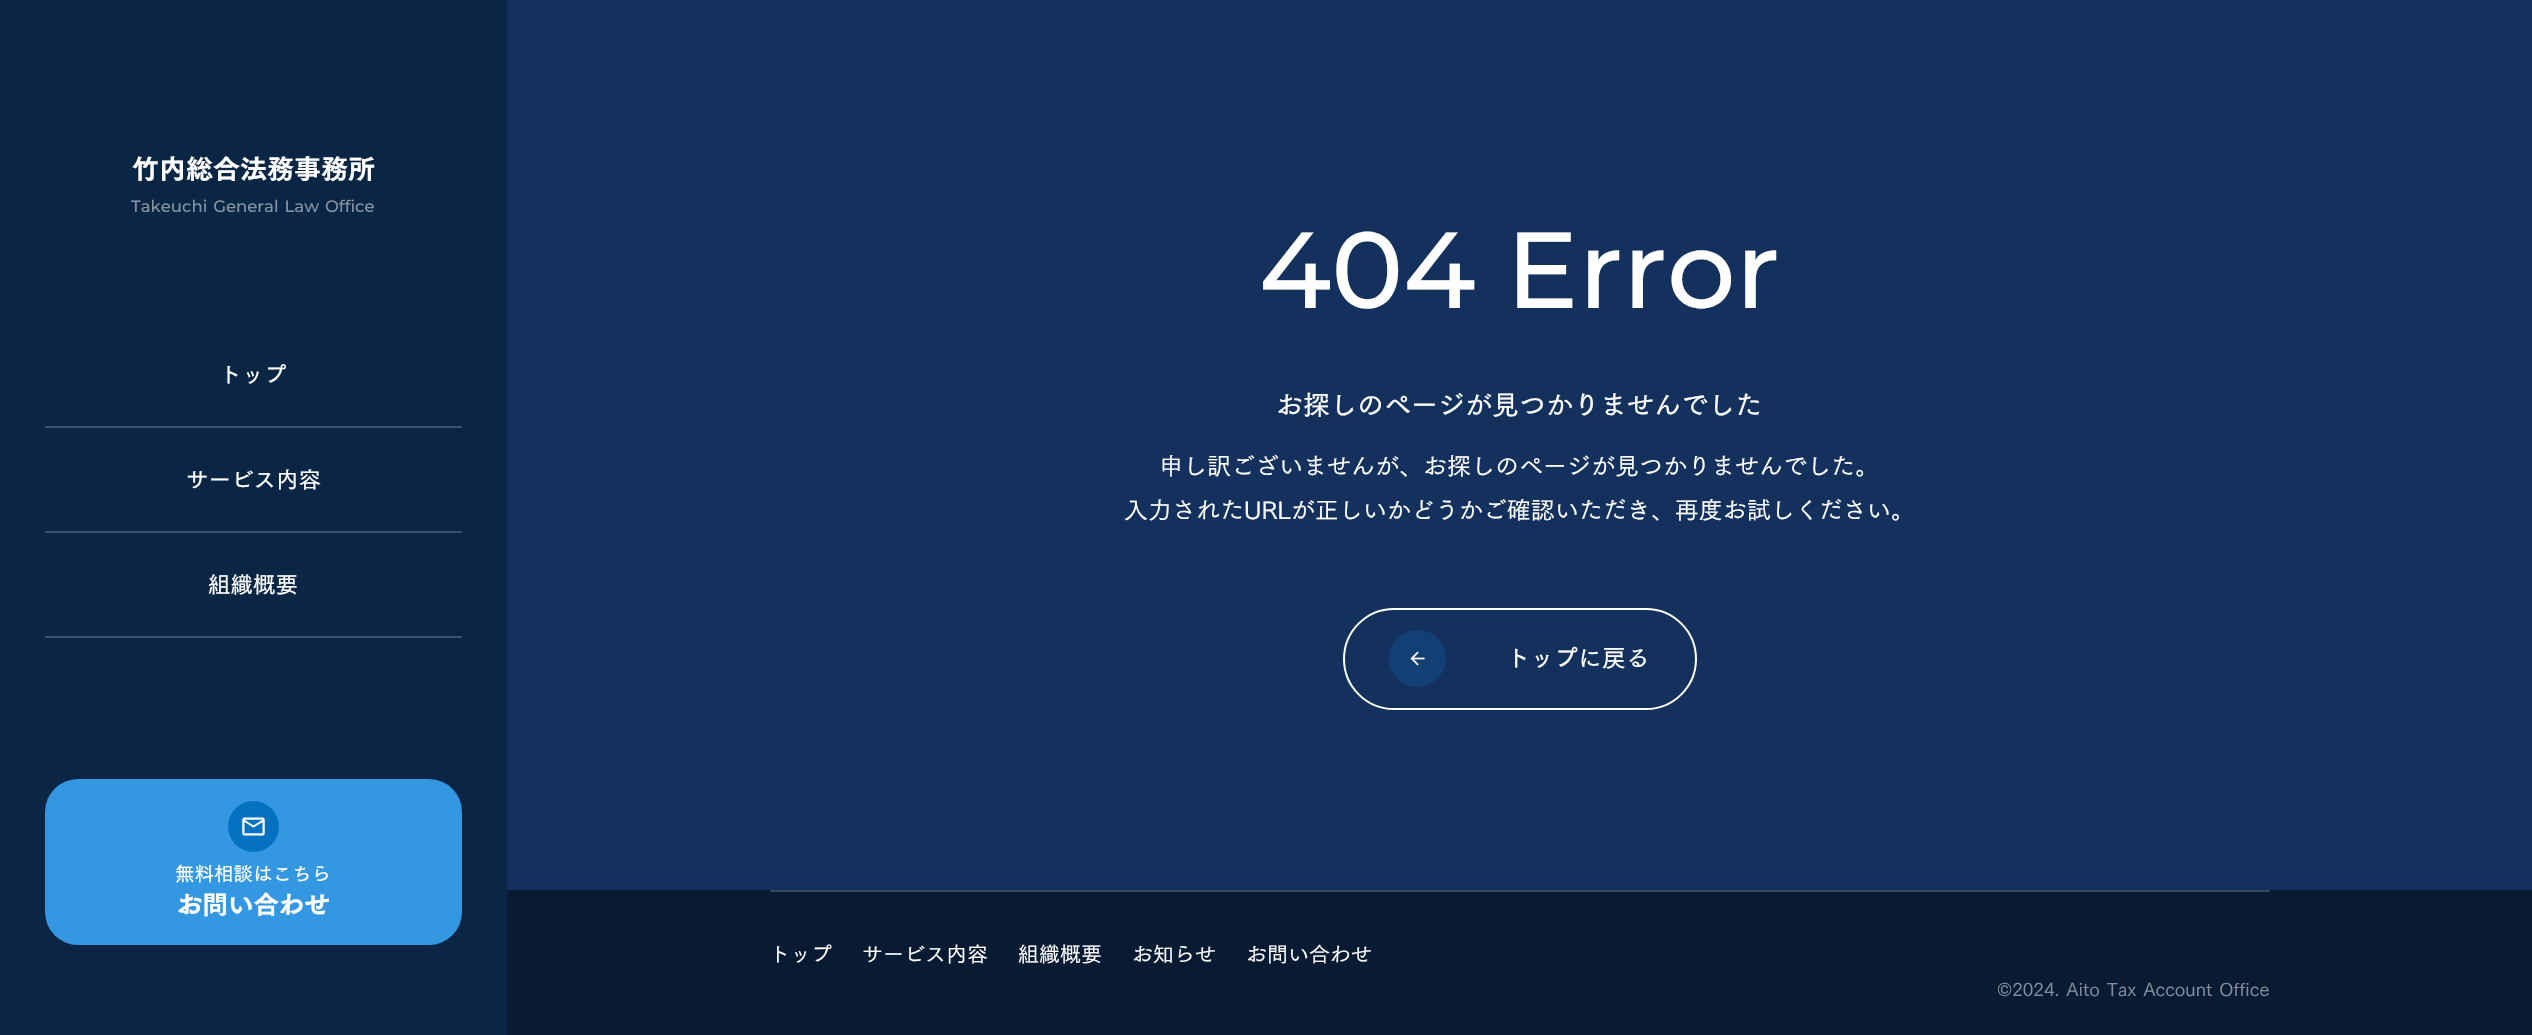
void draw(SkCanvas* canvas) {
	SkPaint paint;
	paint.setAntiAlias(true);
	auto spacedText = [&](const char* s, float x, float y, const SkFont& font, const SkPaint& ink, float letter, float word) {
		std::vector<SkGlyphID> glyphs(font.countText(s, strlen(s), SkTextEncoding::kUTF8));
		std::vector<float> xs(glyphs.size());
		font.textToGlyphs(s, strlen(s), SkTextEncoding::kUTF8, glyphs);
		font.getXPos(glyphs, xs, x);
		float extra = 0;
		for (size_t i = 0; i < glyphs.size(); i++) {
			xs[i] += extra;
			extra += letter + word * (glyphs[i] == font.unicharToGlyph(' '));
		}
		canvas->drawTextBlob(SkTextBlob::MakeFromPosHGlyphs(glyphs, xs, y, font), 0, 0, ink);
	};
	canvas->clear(0xff13315c);
	paint.setColor(0xff0b2545);
	canvas->drawRect(SkRect::MakeXYWH(0, 0, 507, 1035), paint);
	SkFont f1(fontMgr->matchFamilyStyle("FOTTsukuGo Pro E", SkFontStyle(800, SkFontStyle::kNormal_Width, SkFontStyle::kUpright_Slant)), 27);
	f1.setSubpixel(true);
	paint.setColor(0xffffffff);
	canvas->drawString("竹内総合法務事務所", 132, 179, f1, paint);
	SkFont f2(fontMgr->matchFamilyStyle("Montserrat", SkFontStyle(500, SkFontStyle::kNormal_Width, SkFontStyle::kUpright_Slant)), 16.5);
	f2.setSubpixel(true);
	paint.setColor(0xff8592a2);
	spacedText("Takeuchi General Law Office", 131, 212, f2, paint, 0, 1.5);
	paint.setColor(0xff3c516a);
	canvas->drawRect(SkRect::MakeXYWH(45, 426, 417, 2), paint);
	SkFont f3(fontMgr->matchFamilyStyle("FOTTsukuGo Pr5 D", SkFontStyle(600, SkFontStyle::kNormal_Width, SkFontStyle::kUpright_Slant)), 22.5);
	f3.setSubpixel(true);
	paint.setColor(0xffffffff);
	canvas->drawString("トップ", 219, 383, f3, paint);
	paint.setColor(0xff3c516a);
	canvas->drawRect(SkRect::MakeXYWH(45, 531, 417, 2), paint);
	paint.setColor(0xffffffff);
	canvas->drawString("サービス内容", 186, 488, f3, paint);
	paint.setColor(0xff3c516a);
	canvas->drawRect(SkRect::MakeXYWH(45, 636, 417, 2), paint);
	paint.setColor(0xffffffff);
	canvas->drawString("組織概要", 208, 593, f3, paint);
	paint.setColor(0xff3397e2);
	canvas->drawRoundRect(SkRect::MakeXYWH(45, 779, 417, 166), 33, 33, paint);
	paint.setColor(0xff0571c1);
	canvas->drawCircle(253.5, 826.5, 25.5, paint);
	canvas->drawImageRect(SkImages::DeferredFromEncodedData(SkData::MakeFromFileName("img1.png")), SkRect::MakeXYWH(242, 817, 23, 19), SkSamplingOptions());
	SkFont f4(fontMgr->matchFamilyStyle("FOTTsukuGo Pr5 D", SkFontStyle(600, SkFontStyle::kNormal_Width, SkFontStyle::kUpright_Slant)), 19.5);
	f4.setSubpixel(true);
	paint.setColor(0xffffffff);
	canvas->drawString("無料相談はこちら", 175, 881, f4, paint);
	SkFont f5(fontMgr->matchFamilyStyle("FOTTsukuGo Pro E", SkFontStyle(800, SkFontStyle::kNormal_Width, SkFontStyle::kUpright_Slant)), 25.5);
	f5.setSubpixel(true);
	canvas->drawString("お問い合わせ", 177, 914, f5, paint);
	SkFont f6(fontMgr->matchFamilyStyle("Montserrat", SkFontStyle(500, SkFontStyle::kNormal_Width, SkFontStyle::kUpright_Slant)), 108);
	f6.setSubpixel(true);
	spacedText("404 Error", 1259, 308, f6, paint, 0, 1.5);
	SkFont f7(fontMgr->matchFamilyStyle("FOTTsukuGo Pr5 D", SkFontStyle(600, SkFontStyle::kNormal_Width, SkFontStyle::kUpright_Slant)), 27);
	f7.setSubpixel(true);
	canvas->drawString("お探しのページが見つかりませんでした", 1276, 415, f7, paint);
	SkFont f8(fontMgr->matchFamilyStyle("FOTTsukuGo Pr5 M", SkFontStyle(500, SkFontStyle::kNormal_Width, SkFontStyle::kUpright_Slant)), 24);
	f8.setSubpixel(true);
	canvas->drawString("申し訳ございませんが、お探しのページが見つかりませんでした。", 1159, 475, f8, paint);
	canvas->drawString("入力されたURLが正しいかどうかご確認いただき、再度お試しください。", 1124, 519, f8, paint);
	paint.setStroke(true);
	paint.setStrokeWidth(2);
	canvas->drawRoundRect(SkRect::MakeXYWH(1344, 609, 352, 100), 50, 50, paint);
	paint.setStroke(false);
	paint.setColor(0xff134074);
	canvas->drawCircle(1417.5, 658.5, 28.5, paint);
	canvas->drawImageRect(SkImages::DeferredFromEncodedData(SkData::MakeFromFileName("img2.png")), SkRect::MakeXYWH(1410, 651, 15, 15), SkSamplingOptions());
	SkFont f9(fontMgr->matchFamilyStyle("FOTTsukuGo Pr5 D", SkFontStyle(600, SkFontStyle::kNormal_Width, SkFontStyle::kUpright_Slant)), 24);
	f9.setSubpixel(true);
	paint.setColor(0xffffffff);
	canvas->drawString("トップに戻る", 1506, 667, f9, paint);
	paint.setColor(0xff091a33);
	canvas->drawRect(SkRect::MakeXYWH(507, 890, 2025, 145), paint);
	paint.setColor(0xff3a485c);
	canvas->drawRect(SkRect::MakeXYWH(770, 890, 1500, 2), paint);
	SkFont f10(fontMgr->matchFamilyStyle("FOTTsukuGo Pr5 M", SkFontStyle(500, SkFontStyle::kNormal_Width, SkFontStyle::kUpright_Slant)), 21);
	f10.setSubpixel(true);
	paint.setColor(0xffffffff);
	canvas->drawString("トップ", 769, 962, f10, paint);
	canvas->drawString("サービス内容", 862, 962, f10, paint);
	canvas->drawString("組織概要", 1018, 962, f10, paint);
	canvas->drawString("お知らせ", 1132, 962, f10, paint);
	canvas->drawString("お問い合わせ", 1246, 962, f10, paint);
	SkFont f11(fontMgr->matchFamilyStyle("FOTTsukuGo Pr5 M", SkFontStyle(500, SkFontStyle::kNormal_Width, SkFontStyle::kUpright_Slant)), 18);
	f11.setSubpixel(true);
	paint.setColor(0xff848d99);
	spacedText("©2024. Aito Tax Account Office", 1997, 996, f11, paint, 0, 1.5);
}
